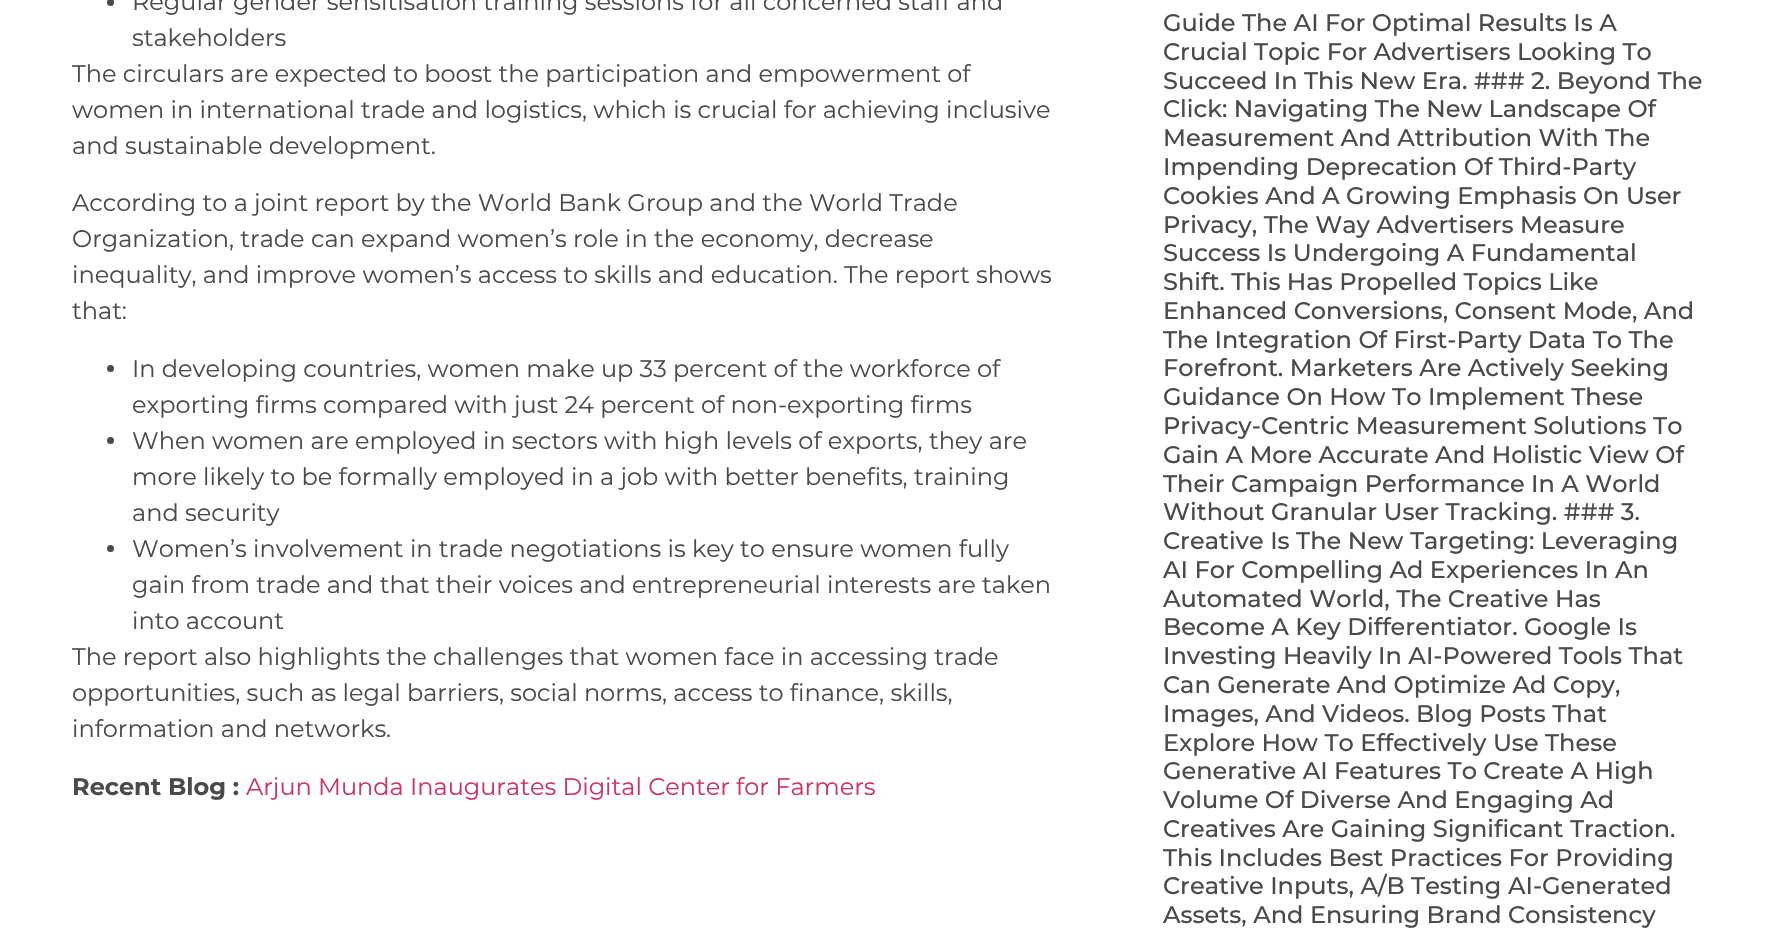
void draw(SkCanvas* canvas) {
	SkPaint paint;
	paint.setAntiAlias(true);
	canvas->clear(0xffffffff);
	paint.setColor(0xff4a4a4a);
	canvas->drawCircle(110.5, 2.5, 3.5, paint);
	SkFont f1(fontMgr->matchFamilyStyle("Montserrat", SkFontStyle::Normal()), 24);
	f1.setSubpixel(true);
	canvas->drawString("Regular gender sensitisation training sessions for all concerned staff and", 132, 10, f1, paint);
	canvas->drawString("stakeholders", 132, 46, f1, paint);
	canvas->drawString("The circulars are expected to boost the participation and empowerment of", 72, 82, f1, paint);
	canvas->drawString("women in international trade and logistics, which is crucial for achieving inclusive", 72, 118, f1, paint);
	canvas->drawString("and sustainable development.", 72, 154, f1, paint);
	canvas->drawString("According to a joint report by the World Bank Group and the World Trade", 72, 211, f1, paint);
	canvas->drawString("Organization, trade can expand women’s role in the economy, decrease", 72, 247, f1, paint);
	canvas->drawString("inequality, and improve women’s access to skills and education. The report shows", 72, 283, f1, paint);
	canvas->drawString("that:", 72, 319, f1, paint);
	canvas->drawCircle(110.5, 368.5, 3.5, paint);
	canvas->drawString("In developing countries, women make up 33 percent of the workforce of", 132, 377, f1, paint);
	canvas->drawString("exporting firms compared with just 24 percent of non-exporting firms", 132, 413, f1, paint);
	canvas->drawCircle(110.5, 440.5, 3.5, paint);
	canvas->drawString("When women are employed in sectors with high levels of exports, they are", 132, 449, f1, paint);
	canvas->drawString("more likely to be formally employed in a job with better benefits, training", 132, 485, f1, paint);
	canvas->drawString("and security", 132, 521, f1, paint);
	canvas->drawCircle(110.5, 548.5, 3.5, paint);
	canvas->drawString("Women’s involvement in trade negotiations is key to ensure women fully", 132, 557, f1, paint);
	canvas->drawString("gain from trade and that their voices and entrepreneurial interests are taken", 132, 593, f1, paint);
	canvas->drawString("into account", 132, 629, f1, paint);
	canvas->drawString("The report also highlights the challenges that women face in accessing trade", 72, 665, f1, paint);
	canvas->drawString("opportunities, such as legal barriers, social norms, access to finance, skills,", 72, 701, f1, paint);
	canvas->drawString("information and networks.", 72, 737, f1, paint);
	SkFont f2(fontMgr->matchFamilyStyle("Montserrat", SkFontStyle::Bold()), 24);
	f2.setSubpixel(true);
	canvas->drawString("Recent Blog :", 72, 795, f2, paint);
	paint.setColor(0xffcc3366);
	canvas->drawString("Arjun Munda Inaugurates Digital Center for Farmers", 246, 795, f1, paint);
	SkFont f3(fontMgr->matchFamilyStyle("Montserrat", SkFontStyle(500, SkFontStyle::kNormal_Width, SkFontStyle::kUpright_Slant)), 24);
	f3.setSubpixel(true);
	paint.setColor(0xff4a4a4a);
	canvas->drawString("Guide The AI For Optimal Results Is A", 1163, 31, f3, paint);
	canvas->drawString("Crucial Topic For Advertisers Looking To", 1163, 60, f3, paint);
	canvas->drawString("Succeed In This New Era. ### 2. Beyond The", 1163, 89, f3, paint);
	canvas->drawString("Click: Navigating The New Landscape Of", 1163, 117, f3, paint);
	canvas->drawString("Measurement And Attribution With The", 1163, 146, f3, paint);
	canvas->drawString("Impending Deprecation Of Third-Party", 1163, 175, f3, paint);
	canvas->drawString("Cookies And A Growing Emphasis On User", 1163, 204, f3, paint);
	canvas->drawString("Privacy, The Way Advertisers Measure", 1163, 233, f3, paint);
	canvas->drawString("Success Is Undergoing A Fundamental", 1163, 261, f3, paint);
	canvas->drawString("Shift. This Has Propelled Topics Like", 1163, 290, f3, paint);
	canvas->drawString("Enhanced Conversions, Consent Mode, And", 1163, 319, f3, paint);
	canvas->drawString("The Integration Of First-Party Data To The", 1163, 348, f3, paint);
	canvas->drawString("Forefront. Marketers Are Actively Seeking", 1163, 376, f3, paint);
	canvas->drawString("Guidance On How To Implement These", 1163, 405, f3, paint);
	canvas->drawString("Privacy-Centric Measurement Solutions To", 1163, 434, f3, paint);
	canvas->drawString("Gain A More Accurate And Holistic View Of", 1163, 463, f3, paint);
	canvas->drawString("Their Campaign Performance In A World", 1163, 492, f3, paint);
	canvas->drawString("Without Granular User Tracking. ### 3.", 1163, 520, f3, paint);
	canvas->drawString("Creative Is The New Targeting: Leveraging", 1163, 549, f3, paint);
	canvas->drawString("AI For Compelling Ad Experiences In An", 1163, 578, f3, paint);
	canvas->drawString("Automated World, The Creative Has", 1163, 607, f3, paint);
	canvas->drawString("Become A Key Differentiator. Google Is", 1163, 635, f3, paint);
	canvas->drawString("Investing Heavily In AI-Powered Tools That", 1163, 664, f3, paint);
	canvas->drawString("Can Generate And Optimize Ad Copy,", 1163, 693, f3, paint);
	canvas->drawString("Images, And Videos. Blog Posts That", 1163, 722, f3, paint);
	canvas->drawString("Explore How To Effectively Use These", 1163, 751, f3, paint);
	canvas->drawString("Generative AI Features To Create A High", 1163, 779, f3, paint);
	canvas->drawString("Volume Of Diverse And Engaging Ad", 1163, 808, f3, paint);
	canvas->drawString("Creatives Are Gaining Significant Traction.", 1163, 837, f3, paint);
	canvas->drawString("This Includes Best Practices For Providing", 1163, 866, f3, paint);
	canvas->drawString("Creative Inputs, A/B Testing AI-Generated", 1163, 894, f3, paint);
	canvas->drawString("Assets, And Ensuring Brand Consistency", 1163, 923, f3, paint);
}
